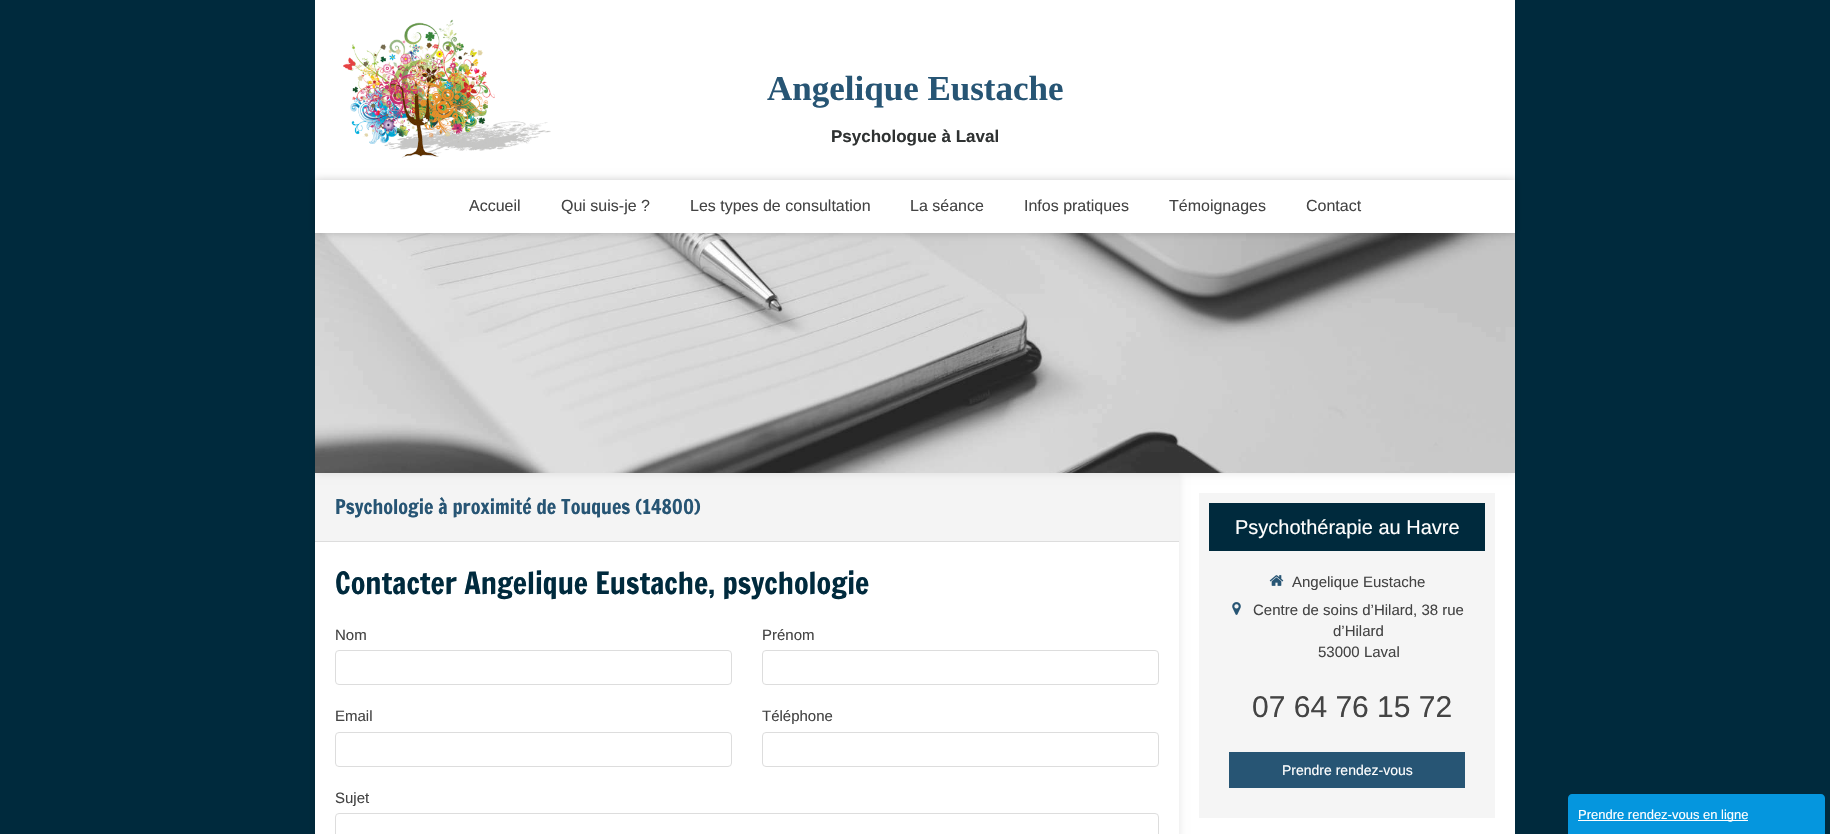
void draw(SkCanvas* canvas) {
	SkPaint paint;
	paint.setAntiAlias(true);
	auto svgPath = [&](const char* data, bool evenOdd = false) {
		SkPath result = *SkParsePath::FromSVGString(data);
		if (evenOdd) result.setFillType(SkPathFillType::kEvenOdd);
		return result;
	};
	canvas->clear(0xff002a3d);
	paint.setColor(0xffffffff);
	canvas->drawRect(SkRect::MakeXYWH(315, 0, 1200, 180), paint);
	canvas->drawImageRect(SkImages::DeferredFromEncodedData(SkData::MakeFromFileName("img1.png")), SkRect::MakeXYWH(343, 19, 208, 139), SkSamplingOptions());
	SkFont f1(fontMgr->matchFamilyStyle("Liberation Serif", SkFontStyle::Bold()), 35);
	f1.setSubpixel(true);
	paint.setColor(0xff275574);
	canvas->drawString("Angelique Eustache", 767, 100, f1, paint);
	SkFont f2(fontMgr->matchFamilyStyle("Liberation Sans", SkFontStyle::Bold()), 17);
	f2.setSubpixel(true);
	paint.setColor(0xff2f3232);
	canvas->drawString("Psychologue à Laval", 831, 142, f2, paint);
	paint.setColor(0xffffffff);
	canvas->drawRect(SkRect::MakeXYWH(315, 473, 1200, 361), paint);
	canvas->save();
	canvas->clipPath(svgPath("M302 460H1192V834H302ZM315 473H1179V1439H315Z", true), true);
	paint.setColor(0x1a000000);
	paint.setMaskFilter(SkMaskFilter::MakeBlur(kNormal_SkBlurStyle, 4));
	canvas->drawRect(SkRect::MakeXYWH(315, 473, 864, 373), paint);
	paint.setMaskFilter(nullptr);
	canvas->restore();
	paint.setColor(0xfff4f4f4);
	canvas->drawRect(SkRect::MakeXYWH(315, 473, 864, 68), paint);
	paint.setColor(0x1a000000);
	paint.setMaskFilter(SkMaskFilter::MakeBlur(kNormal_SkBlurStyle, 4));
	canvas->drawRect(SkRect::MakeXYWH(315, 233, 1200, 240), paint);
	paint.setMaskFilter(nullptr);
	canvas->drawImageRect(SkImages::DeferredFromEncodedData(SkData::MakeFromFileName("img2.png")), SkRect::MakeXYWH(315, 233, 1200, 240), SkSamplingOptions());
	paint.setColor(0x33000000);
	paint.setMaskFilter(SkMaskFilter::MakeBlur(kNormal_SkBlurStyle, 4));
	canvas->drawRect(SkRect::MakeXYWH(315, 180, 1200, 53), paint);
	paint.setMaskFilter(nullptr);
	paint.setColor(0xffffffff);
	canvas->drawRect(SkRect::MakeXYWH(315, 180, 1200, 53), paint);
	SkFont f3(fontMgr->matchFamilyStyle("Liberation Sans", SkFontStyle::Normal()), 16);
	f3.setSubpixel(true);
	paint.setColor(0xff444444);
	canvas->drawString("Accueil", 469, 211, f3, paint);
	canvas->drawString("Qui suis-je ?", 561, 211, f3, paint);
	canvas->drawString("Les types de consultation", 690, 211, f3, paint);
	canvas->drawString("La séance", 910, 211, f3, paint);
	canvas->drawString("Infos pratiques", 1024, 211, f3, paint);
	canvas->drawString("Témoignages", 1169, 211, f3, paint);
	canvas->drawString("Contact", 1306, 211, f3, paint);
	paint.setColor(0xffdddddd);
	canvas->drawRect(SkRect::MakeXYWH(315, 541, 864, 1), paint);
	SkFont f4(fontMgr->matchFamilyStyle("Francois One", SkFontStyle::Normal()), 20);
	f4.setSubpixel(true);
	paint.setColor(0xff275574);
	canvas->drawString("Psychologie à proximité de Touques (14800)", 335, 514, f4, paint);
	SkFont f5(fontMgr->matchFamilyStyle("Francois One", SkFontStyle::Normal()), 30);
	f5.setSubpixel(true);
	paint.setColor(0xff002a3d);
	canvas->drawString("Contacter Angelique Eustache, psychologie", 335, 594, f5, paint);
	SkFont f6(fontMgr->matchFamilyStyle("Liberation Sans", SkFontStyle::Normal()), 15);
	f6.setSubpixel(true);
	paint.setColor(0xff444444);
	canvas->drawString("Nom", 335, 640, f6, paint);
	paint.setStroke(true);
	paint.setStrokeWidth(1);
	paint.setColor(0xffdddddd);
	canvas->drawRoundRect(SkRect::MakeXYWH(335.5, 650.5, 396, 34), 3.5, 3.5, paint);
	paint.setStroke(false);
	paint.setColor(0xff444444);
	canvas->drawString("Prénom", 762, 640, f6, paint);
	paint.setStroke(true);
	paint.setColor(0xffdddddd);
	canvas->drawRoundRect(SkRect::MakeXYWH(762.5, 650.5, 396, 34), 3.5, 3.5, paint);
	paint.setStroke(false);
	paint.setColor(0xff444444);
	canvas->drawString("Email", 335, 721, f6, paint);
	paint.setStroke(true);
	paint.setColor(0xffdddddd);
	canvas->drawRoundRect(SkRect::MakeXYWH(335.5, 732.5, 396, 34), 3.5, 3.5, paint);
	paint.setStroke(false);
	paint.setColor(0xff444444);
	canvas->drawString("Téléphone", 762, 721, f6, paint);
	paint.setStroke(true);
	paint.setColor(0xffdddddd);
	canvas->drawRoundRect(SkRect::MakeXYWH(762.5, 732.5, 396, 34), 3.5, 3.5, paint);
	paint.setStroke(false);
	paint.setColor(0xff444444);
	canvas->drawString("Sujet", 335, 803, f6, paint);
	paint.setStroke(true);
	paint.setColor(0xffdddddd);
	canvas->drawRoundRect(SkRect::MakeXYWH(335.5, 813.5, 823, 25), 3.5, 3.5, paint);
	paint.setStroke(false);
	paint.setColor(0xfff5f5f5);
	canvas->drawRect(SkRect::MakeXYWH(1199, 493, 296, 325), paint);
	paint.setColor(0xff002a3d);
	canvas->drawRect(SkRect::MakeXYWH(1209, 503, 276, 48), paint);
	SkFont f7(fontMgr->matchFamilyStyle("Liberation Sans", SkFontStyle::Normal()), 20);
	f7.setSubpixel(true);
	paint.setColor(0xffffffff);
	canvas->drawString("Psychothérapie au Havre", 1235, 534, f7, paint);
	canvas->drawImageRect(SkImages::DeferredFromEncodedData(SkData::MakeFromFileName("img3.png")), SkRect::MakeXYWH(1269, 575, 15, 11), SkSamplingOptions());
	paint.setColor(0xff444444);
	canvas->drawString("Angelique Eustache", 1292, 587, f6, paint);
	canvas->drawImageRect(SkImages::DeferredFromEncodedData(SkData::MakeFromFileName("img4.png")), SkRect::MakeXYWH(1232, 602, 9, 13), SkSamplingOptions());
	canvas->drawString("Centre de soins d’Hilard, 38 rue", 1253, 615, f6, paint);
	canvas->drawString("d’Hilard", 1333, 636, f6, paint);
	canvas->drawString("53000 Laval", 1318, 657, f6, paint);
	SkFont f8(fontMgr->matchFamilyStyle("Liberation Sans", SkFontStyle::Normal()), 30);
	f8.setSubpixel(true);
	canvas->drawString("07 64 76 15 72", 1252, 717, f8, paint);
	paint.setColor(0xff275574);
	canvas->drawRect(SkRect::MakeXYWH(1229, 752, 236, 36), paint);
	SkFont f9(fontMgr->matchFamilyStyle("Liberation Sans", SkFontStyle::Normal()), 14);
	f9.setSubpixel(true);
	paint.setColor(0xffffffff);
	canvas->drawString("Prendre rendez-vous", 1282, 775, f9, paint);
	paint.setColor(0xff0596de);
	canvas->drawPath(svgPath("M1572 794H1821C1823 794 1825 796 1825 798V834H1568V798C1568 796 1570 794 1572 794Z"), paint);
	paint.setColor(0xffffffff);
	canvas->drawRect(SkRect::MakeXYWH(1578, 820, 170, 1), paint);
	SkFont f10(fontMgr->matchFamilyStyle("Liberation Sans", SkFontStyle::Normal()), 13);
	f10.setSubpixel(true);
	canvas->drawString("Prendre rendez-vous en ligne", 1578, 819, f10, paint);
}
